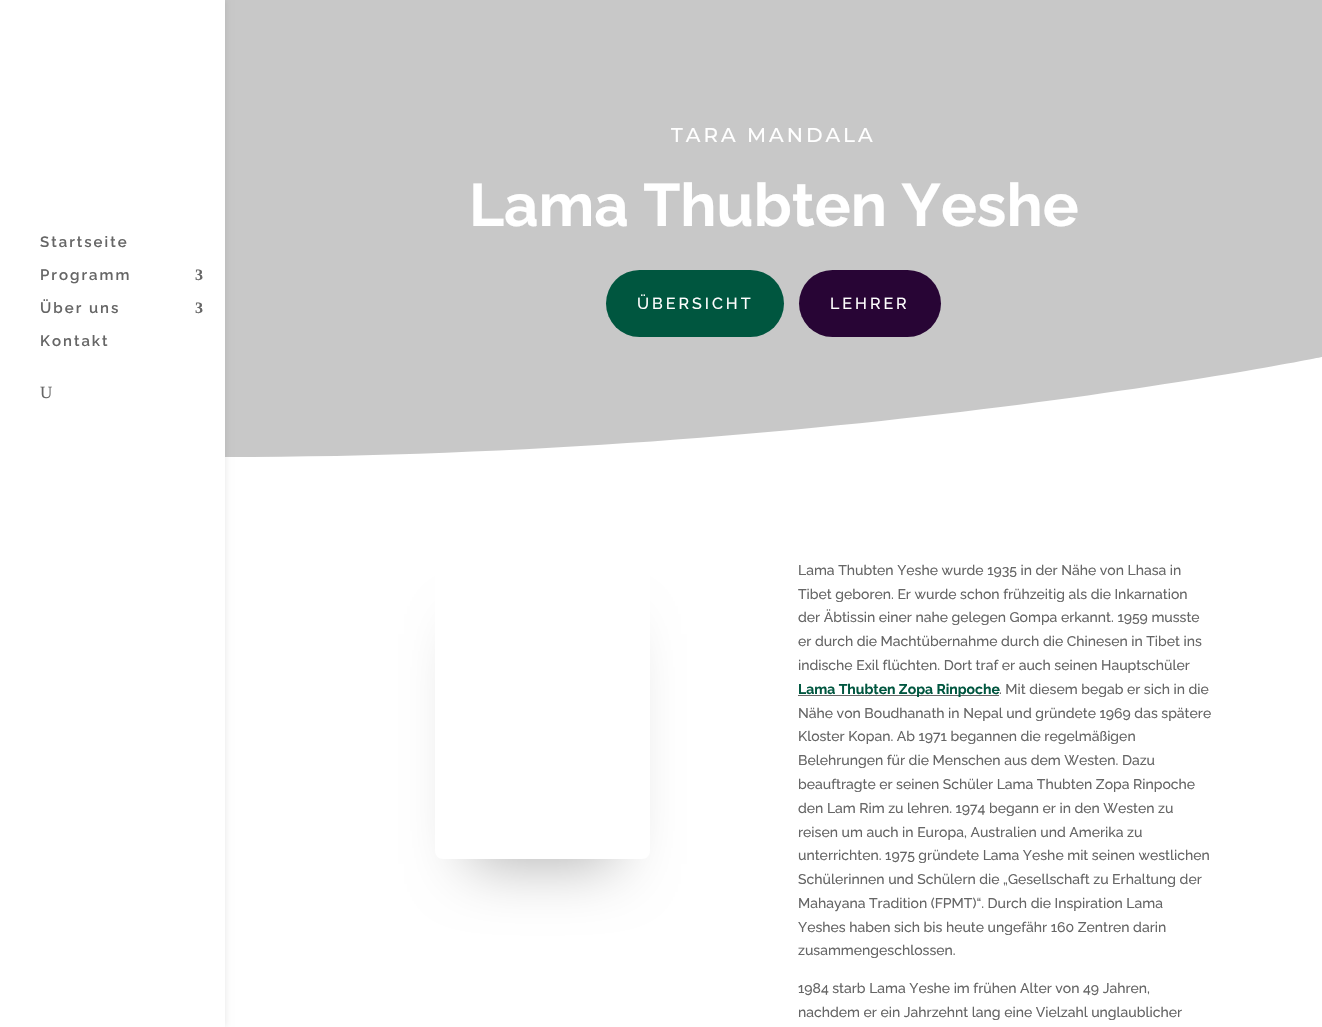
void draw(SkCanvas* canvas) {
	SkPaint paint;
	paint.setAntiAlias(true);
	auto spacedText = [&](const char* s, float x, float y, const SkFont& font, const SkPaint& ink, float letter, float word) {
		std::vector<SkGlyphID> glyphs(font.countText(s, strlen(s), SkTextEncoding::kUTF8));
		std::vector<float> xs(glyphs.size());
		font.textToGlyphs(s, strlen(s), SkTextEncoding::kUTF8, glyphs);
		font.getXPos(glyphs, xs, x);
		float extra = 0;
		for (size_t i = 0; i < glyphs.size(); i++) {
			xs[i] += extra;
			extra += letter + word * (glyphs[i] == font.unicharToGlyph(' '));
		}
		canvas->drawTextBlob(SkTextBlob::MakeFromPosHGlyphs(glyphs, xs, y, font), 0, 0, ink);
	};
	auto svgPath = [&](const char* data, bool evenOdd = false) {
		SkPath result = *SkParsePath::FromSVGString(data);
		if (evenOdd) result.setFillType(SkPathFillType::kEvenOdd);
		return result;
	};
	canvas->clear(0xffffffff);
	paint.setColor(0xffc8c8c8);
	canvas->drawRect(SkRect::MakeXYWH(225, 0, 1097, 457), paint);
	paint.setColor(0xffffffff);
	canvas->drawPath(svgPath("M1322 457H225C831 457 1322 357 1322 357Z"), paint);
	paint.setColor(0x1a000000);
	paint.setMaskFilter(SkMaskFilter::MakeBlur(kNormal_SkBlurStyle, 3.5));
	canvas->drawRect(SkRect::MakeXYWH(0, 0, 225, 1027), paint);
	paint.setMaskFilter(nullptr);
	paint.setColor(0xffffffff);
	canvas->drawRect(SkRect::MakeXYWH(0, 0, 225, 1027), paint);
	SkFont f1(fontMgr->matchFamilyStyle("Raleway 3", SkFontStyle(100, SkFontStyle::kNormal_Width, SkFontStyle::kUpright_Slant)), 15);
	f1.setSubpixel(true);
	paint.setColor(0xff666666);
	spacedText("Startseite", 40, 247, f1, paint, 2, 0);
	spacedText("Programm", 40, 280, f1, paint, 2, 0);
	SkFont f2(fontMgr->matchFamilyStyle("Liberation Serif", SkFontStyle::Bold()), 16);
	f2.setSubpixel(true);
	spacedText("3", 195, 280, f2, paint, 2, 0);
	spacedText("Über uns", 40, 313, f1, paint, 2, 0);
	spacedText("3", 195, 313, f2, paint, 2, 0);
	spacedText("Kontakt", 40, 346, f1, paint, 2, 0);
	SkFont f3(fontMgr->matchFamilyStyle("Liberation Serif", SkFontStyle::Normal()), 17);
	f3.setSubpixel(true);
	canvas->drawString("U", 40, 398, f3, paint);
	SkFont f4(fontMgr->matchFamilyStyle("Montserrat", SkFontStyle(100, SkFontStyle::kNormal_Width, SkFontStyle::kUpright_Slant)), 20);
	f4.setSubpixel(true);
	paint.setColor(0xffffffff);
	spacedText("TARA MANDALA", 671, 142, f4, paint, 3, 0);
	SkFont f5(fontMgr->matchFamilyStyle("Raleway", SkFontStyle(100, SkFontStyle::kNormal_Width, SkFontStyle::kUpright_Slant)), 60);
	f5.setSubpixel(true);
	canvas->drawString("Lama Thubten Yeshe", 469, 226, f5, paint);
	paint.setColor(0xff00563f);
	canvas->drawRoundRect(SkRect::MakeXYWH(606, 270, 178, 67), 33.5, 33.5, paint);
	SkFont f6(fontMgr->matchFamilyStyle("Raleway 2", SkFontStyle(100, SkFontStyle::kNormal_Width, SkFontStyle::kUpright_Slant)), 16);
	f6.setSubpixel(true);
	paint.setColor(0xffffffff);
	spacedText("ÜBERSICHT", 637, 309, f6, paint, 3, 0);
	paint.setColor(0xff280535);
	canvas->drawRoundRect(SkRect::MakeXYWH(799, 270, 142, 67), 33.5, 33.5, paint);
	paint.setColor(0xffffffff);
	spacedText("LEHRER", 830, 309, f6, paint, 3, 0);
	canvas->save();
	canvas->clipPath(svgPath("M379 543H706V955H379ZM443 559H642C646.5 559 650 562.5 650 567V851C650 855.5 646.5 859 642 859H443C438.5 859 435 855.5 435 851V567C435 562.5 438.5 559 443 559Z", true), true);
	paint.setColor(0x4d000000);
	paint.setMaskFilter(SkMaskFilter::MakeBlur(kNormal_SkBlurStyle, 30));
	canvas->drawRect(SkRect::MakeXYWH(470, 634, 145, 230), paint);
	paint.setMaskFilter(nullptr);
	canvas->restore();
	SkFont f7(fontMgr->matchFamilyStyle("Raleway 2", SkFontStyle(100, SkFontStyle::kNormal_Width, SkFontStyle::kUpright_Slant)), 14);
	f7.setSubpixel(true);
	paint.setColor(0xff666666);
	canvas->drawString("Lama Thubten Yeshe wurde 1935 in der Nähe von Lhasa in", 798, 575, f7, paint);
	canvas->drawString("Tibet geboren. Er wurde schon frühzeitig als die Inkarnation", 798, 599, f7, paint);
	canvas->drawString("der Äbtissin einer nahe gelegen Gompa erkannt. 1959 musste", 798, 622, f7, paint);
	canvas->drawString("er durch die Machtübernahme durch die Chinesen in Tibet ins", 798, 646, f7, paint);
	canvas->drawString("indische Exil flüchten. Dort traf er auch seinen Hauptschüler", 798, 670, f7, paint);
	canvas->drawRect(SkRect::MakeXYWH(798, 695, 201, 1), paint);
	SkFont f8(fontMgr->matchFamilyStyle("Raleway", SkFontStyle(100, SkFontStyle::kNormal_Width, SkFontStyle::kUpright_Slant)), 14);
	f8.setSubpixel(true);
	paint.setColor(0xff00563f);
	canvas->drawString("Lama Thubten Zopa Rinpoche", 798, 694, f8, paint);
	paint.setColor(0xff666666);
	canvas->drawString(". Mit diesem begab er sich in die", 999, 694, f7, paint);
	canvas->drawString("Nähe von Boudhanath in Nepal und gründete 1969 das spätere", 798, 718, f7, paint);
	canvas->drawString("Kloster Kopan. Ab 1971 begannen die regelmäßigen", 798, 741, f7, paint);
	canvas->drawString("Belehrungen für die Menschen aus dem Westen. Dazu", 798, 765, f7, paint);
	canvas->drawString("beauftragte er seinen Schüler Lama Thubten Zopa Rinpoche", 798, 789, f7, paint);
	canvas->drawString("den Lam Rim zu lehren. 1974 begann er in den Westen zu", 798, 813, f7, paint);
	canvas->drawString("reisen um auch in Europa, Australien und Amerika zu", 798, 837, f7, paint);
	canvas->drawString("unterrichten. 1975 gründete Lama Yeshe mit seinen westlichen", 798, 860, f7, paint);
	canvas->drawString("Schülerinnen und Schülern die „Gesellschaft zu Erhaltung der", 798, 884, f7, paint);
	canvas->drawString("Mahayana Tradition (FPMT)“. Durch die Inspiration Lama", 798, 908, f7, paint);
	canvas->drawString("Yeshes haben sich bis heute ungefähr 160 Zentren darin", 798, 932, f7, paint);
	canvas->drawString("zusammengeschlossen.", 798, 955, f7, paint);
	canvas->drawString("1984 starb Lama Yeshe im frühen Alter von 49 Jahren,", 798, 993, f7, paint);
	canvas->drawString("nachdem er ein Jahrzehnt lang eine Vielzahl unglaublicher", 798, 1017, f7, paint);
}
